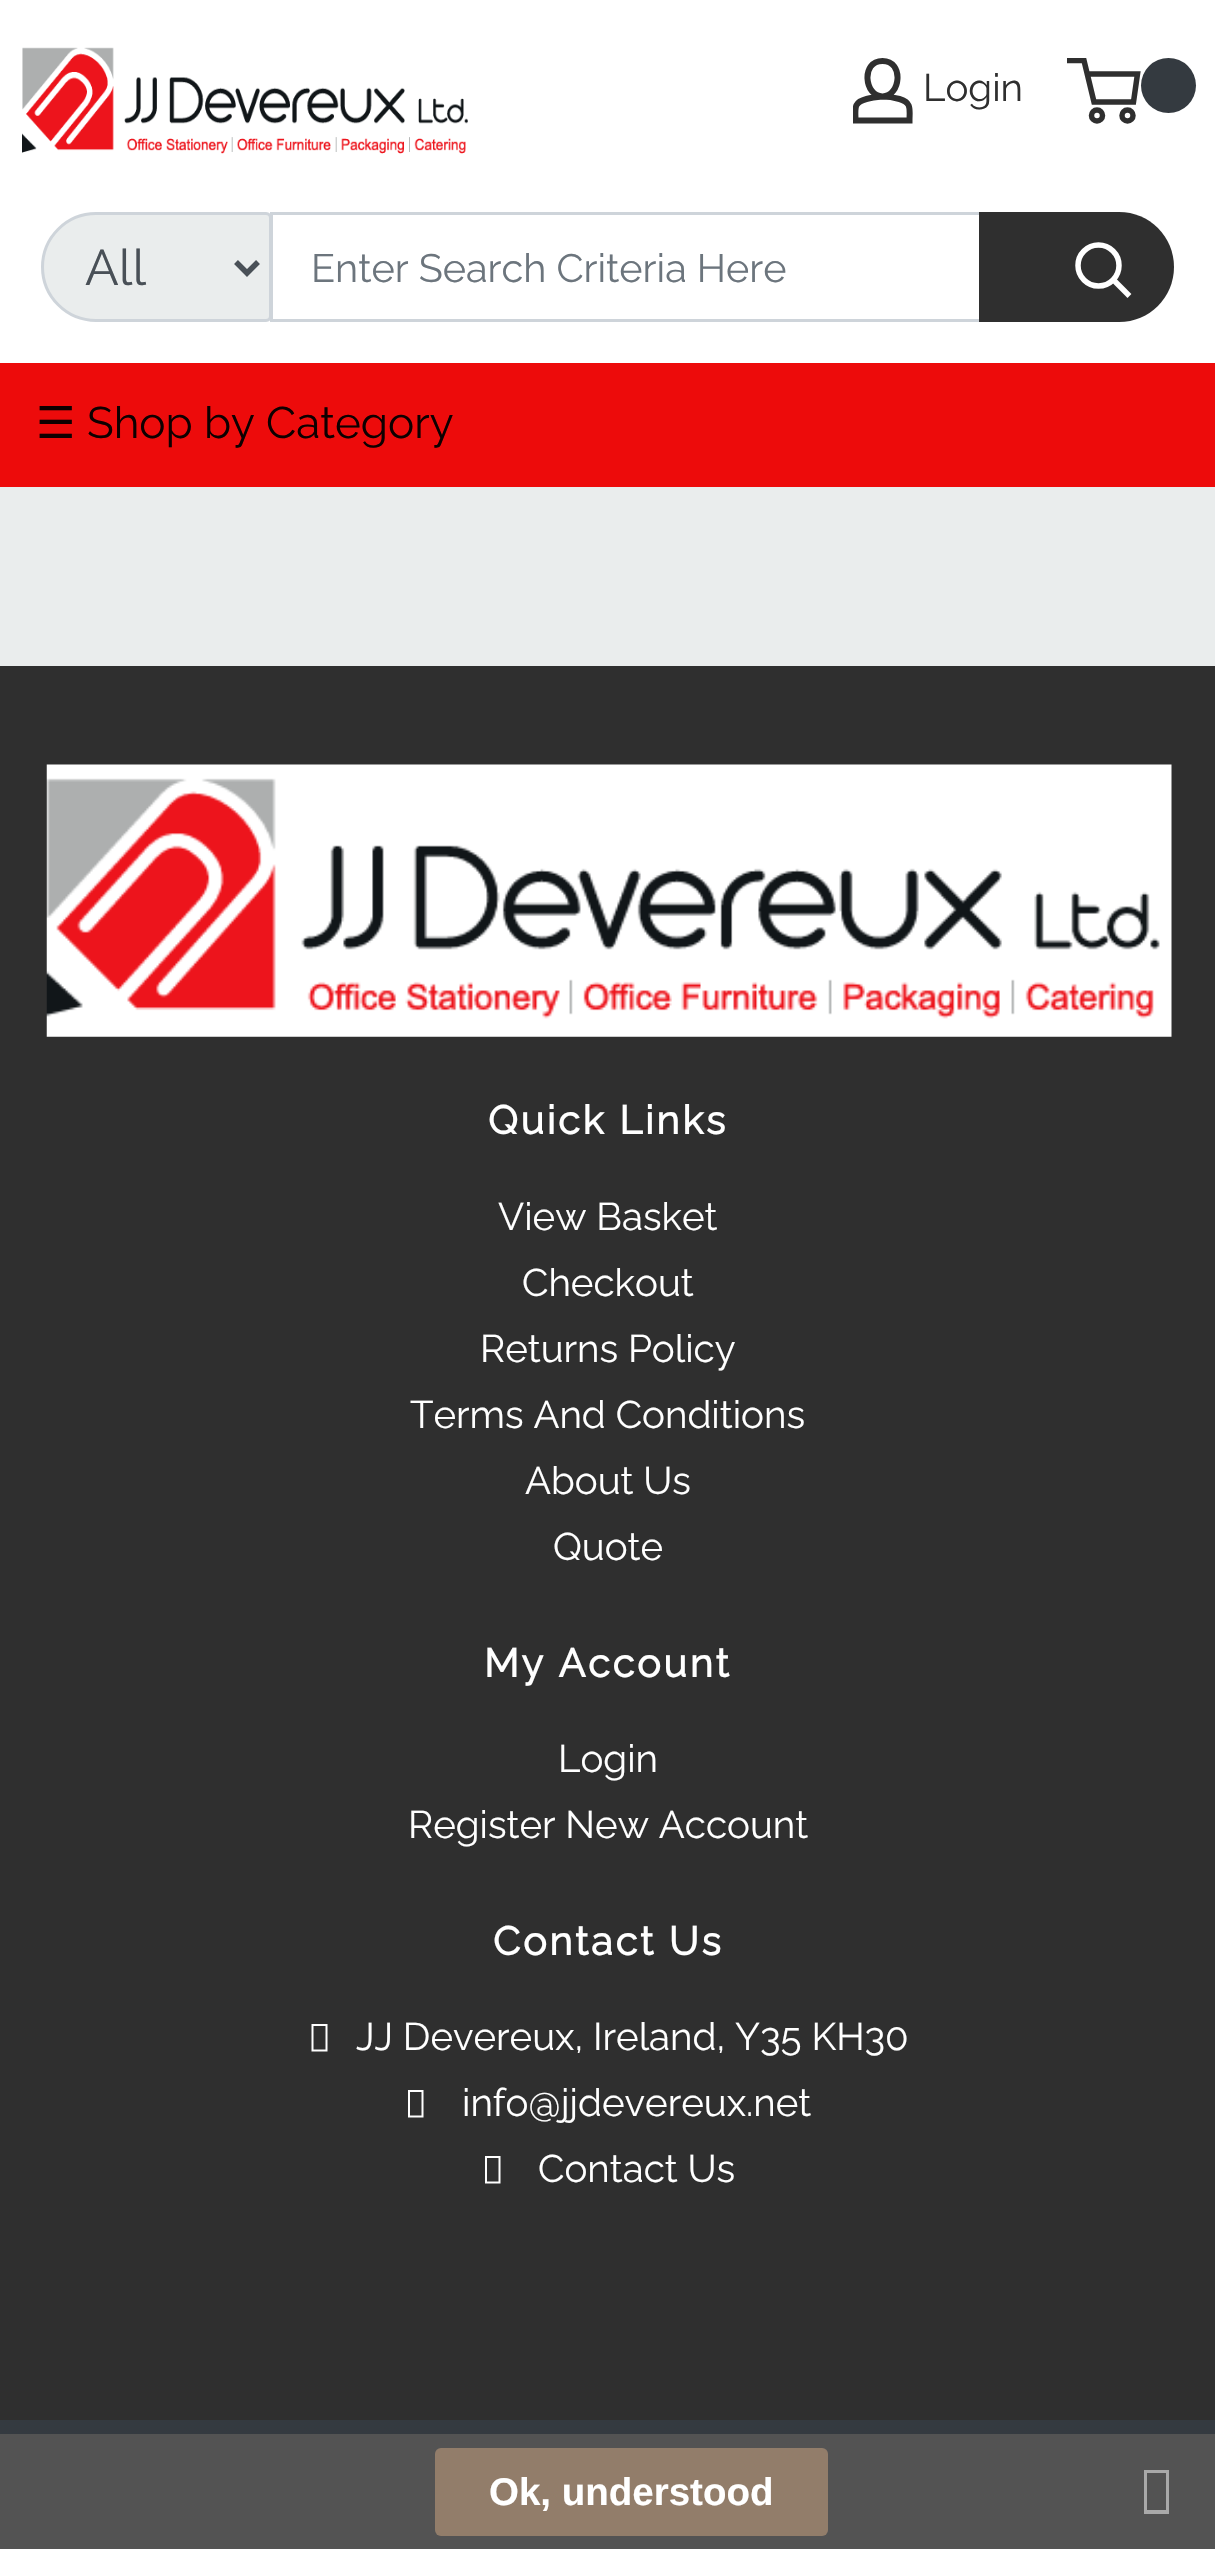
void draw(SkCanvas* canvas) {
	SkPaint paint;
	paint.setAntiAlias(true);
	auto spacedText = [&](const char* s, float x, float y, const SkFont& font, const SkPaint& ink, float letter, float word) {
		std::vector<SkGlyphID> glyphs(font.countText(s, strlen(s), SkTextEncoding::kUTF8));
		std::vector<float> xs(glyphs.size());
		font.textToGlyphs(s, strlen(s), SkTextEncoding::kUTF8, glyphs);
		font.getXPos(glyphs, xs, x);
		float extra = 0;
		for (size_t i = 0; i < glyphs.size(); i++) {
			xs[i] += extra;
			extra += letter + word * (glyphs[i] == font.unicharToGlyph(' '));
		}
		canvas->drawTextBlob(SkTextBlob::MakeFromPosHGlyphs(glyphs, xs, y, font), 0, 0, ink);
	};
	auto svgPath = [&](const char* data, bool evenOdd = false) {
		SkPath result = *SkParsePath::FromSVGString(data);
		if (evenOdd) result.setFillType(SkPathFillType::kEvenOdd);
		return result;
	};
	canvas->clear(0xffeaeded);
	paint.setColor(0xffffffff);
	canvas->drawRect(SkRect::MakeXYWH(0, 0, 1215, 363), paint);
	canvas->save();
	canvas->clipRect(SkRect::MakeXYWH(853, 58, 60, 66));
	paint.setStroke(true);
	paint.setStrokeWidth(6);
	paint.setColor(0xff2f2f2f);
	canvas->drawPath(svgPath("M882.5 96.5C888 96.5 894 97.5 899.5 99C912 102.5 909.5 109.5 909.5 120.5H855.5C855.5 108.5 853 102.5 866.5 99C872 97.5 877 97 882.5 96.5ZM882.5 96.5C864.5 96.5 860.5 61 882.5 61C904.5 61 900.5 96.5 882.5 96.5Z"), paint);
	canvas->restore();
	SkFont f1(fontMgr->matchFamilyStyle("Raleway", SkFontStyle(100, SkFontStyle::kNormal_Width, SkFontStyle::kUpright_Slant)), 38.5);
	f1.setSubpixel(true);
	paint.setStroke(false);
	canvas->drawString("Login", 923, 101, f1, paint);
	canvas->save();
	canvas->clipRect(SkRect::MakeXYWH(1067, 58, 74, 66));
	paint.setStroke(true);
	paint.setStrokeWidth(5.5);
	canvas->drawPath(svgPath("M1087 74H1137.5L1133.5 102H1094L1084 60.5H1067"), paint);
	canvas->restore();
	paint.setStroke(false);
	paint.setColor(0xff343a40);
	canvas->drawCircle(1168.5, 85.5, 27.5, paint);
	paint.setStroke(true);
	paint.setColor(0xff2f2f2f);
	canvas->drawCircle(1097, 115.5, 5.5, paint);
	canvas->drawCircle(1127.5, 115.5, 5.5, paint);
	canvas->drawImageRect(SkImages::DeferredFromEncodedData(SkData::MakeFromFileName("img1.png")), SkRect::MakeXYWH(22, 47, 446, 107), SkSamplingOptions());
	paint.setStroke(false);
	paint.setColor(0xffeaeded);
	canvas->drawPath(svgPath("M96 213.5H266C268.5 213.5 270.5 215.5 270.5 218V316C270.5 318.5 268.5 320.5 266 320.5H96C66.5 320.5 42.5 296.5 42.5 267C42.5 237.5 66.5 213.5 96 213.5Z"), paint);
	paint.setStroke(true);
	paint.setStrokeWidth(3);
	paint.setColor(0xffced4da);
	canvas->drawPath(svgPath("M96 213.5H266C268.5 213.5 270.5 215.5 270.5 218V316C270.5 318.5 268.5 320.5 266 320.5H96C66.5 320.5 42.5 296.5 42.5 267C42.5 237.5 66.5 213.5 96 213.5Z"), paint);
	paint.setStrokeWidth(5.5);
	paint.setColor(0xff495057);
	canvas->drawPath(svgPath("M236 262L247 273L258 262"), paint);
	SkFont f2(fontMgr->matchFamilyStyle("Raleway", SkFontStyle(100, SkFontStyle::kNormal_Width, SkFontStyle::kUpright_Slant)), 50);
	f2.setSubpixel(true);
	paint.setStroke(false);
	canvas->drawString("All", 85, 285, f2, paint);
	paint.setStroke(true);
	paint.setStrokeWidth(3);
	paint.setColor(0xffced4da);
	canvas->drawRect(SkRect::MakeXYWH(271.5, 213.5, 709, 107), paint);
	SkFont f3(fontMgr->matchFamilyStyle("Raleway", SkFontStyle(100, SkFontStyle::kNormal_Width, SkFontStyle::kUpright_Slant)), 39.6);
	f3.setSubpixel(true);
	paint.setStroke(false);
	paint.setColor(0xff6c757d);
	canvas->drawString("Enter Search Criteria Here", 311, 282, f3, paint);
	paint.setColor(0xff2f2f2f);
	canvas->drawPath(svgPath("M979 212H1119C1149.5 212 1174 236.5 1174 267C1174 297.5 1149.5 322 1119 322H979Z"), paint);
	paint.setStroke(true);
	paint.setStrokeWidth(5.5);
	paint.setStrokeCap(SkPaint::kSquare_Cap);
	paint.setColor(0xffffffff);
	canvas->drawPath(svgPath("M1127.5 294L1114 280.5"), paint);
	paint.setStrokeCap(SkPaint::kButt_Cap);
	canvas->drawCircle(1098.5, 265.5, 20.5, paint);
	paint.setStroke(false);
	paint.setColor(0xffed0b0b);
	canvas->drawRect(SkRect::MakeXYWH(0, 363, 1215, 124), paint);
	SkFont f4(fontMgr->matchFamilyStyle("DejaVu Sans", SkFontStyle::Normal()), 44);
	f4.setSubpixel(true);
	paint.setColor(0xff0e0000);
	canvas->drawString("☰", 36, 438, f4, paint);
	SkFont f5(fontMgr->matchFamilyStyle("Raleway", SkFontStyle(100, SkFontStyle::kNormal_Width, SkFontStyle::kUpright_Slant)), 44);
	f5.setSubpixel(true);
	canvas->drawString("Shop by Category", 87, 438, f5, paint);
	paint.setColor(0xff2f2f2f);
	canvas->drawRect(SkRect::MakeXYWH(0, 666, 1215, 1754), paint);
	canvas->drawImageRect(SkImages::DeferredFromEncodedData(SkData::MakeFromFileName("img2.png")), SkRect::MakeXYWH(46, 764, 1126, 273), SkSamplingOptions());
	SkFont f6(fontMgr->matchFamilyStyle("Raleway", SkFontStyle::Bold()), 39.6);
	f6.setSubpixel(true);
	paint.setColor(0xffffffff);
	spacedText("Quick Links", 488, 1134, f6, paint, 2.75, 0);
	canvas->drawString("View Basket", 498, 1230, f1, paint);
	canvas->drawString("Checkout", 522, 1296, f1, paint);
	canvas->drawString("Returns Policy", 480, 1362, f1, paint);
	canvas->drawString("Terms And Conditions", 410, 1428, f1, paint);
	canvas->drawString("About Us", 525, 1494, f1, paint);
	canvas->drawString("Quote", 553, 1560, f1, paint);
	spacedText("My Account", 484, 1677, f6, paint, 2.75, 0);
	canvas->drawString("Login", 558, 1772, f1, paint);
	canvas->drawString("Register New Account", 408, 1838, f1, paint);
	spacedText("Contact Us", 493, 1955, f6, paint, 2.75, 0);
	canvas->drawPath(svgPath("M311.5 2051.5V2024H327.5V2051.5ZM313.5 2049.5H325.5V2026H313.5Z"), paint);
	canvas->drawString("JJ Devereux, Ireland, Y35 KH30", 356, 2050, f1, paint);
	canvas->drawPath(svgPath("M408 2117.5V2090H423.5V2117.5ZM410 2115.5H421.5V2092H410Z"), paint);
	canvas->drawString("info@jjdevereux.net", 462, 2116, f1, paint);
	canvas->drawPath(svgPath("M485 2183.5V2156H500.5V2183.5ZM487 2181.5H498.5V2158H487Z"), paint);
	canvas->drawString("Contact Us", 538, 2182, f1, paint);
	paint.setColor(0xff343a40);
	canvas->drawRect(SkRect::MakeXYWH(0, 2420, 1215, 14), paint);
	paint.setColor(0xff535353);
	canvas->drawRect(SkRect::MakeXYWH(0, 2434, 1215, 115), paint);
	paint.setColor(0xff927d6a);
	canvas->drawRoundRect(SkRect::MakeXYWH(435, 2448, 393, 88), 6, 6, paint);
	SkFont f7(fontMgr->matchFamilyStyle("Liberation Sans", SkFontStyle::Bold()), 38.5);
	f7.setSubpixel(true);
	paint.setColor(0xffffffff);
	canvas->drawString("Ok, understood", 489, 2505, f7, paint);
	paint.setColor(0xffa9a9a9);
	canvas->drawPath(svgPath("M1144 2514V2470H1169V2514ZM1147 2510H1166V2473H1147Z"), paint);
}
